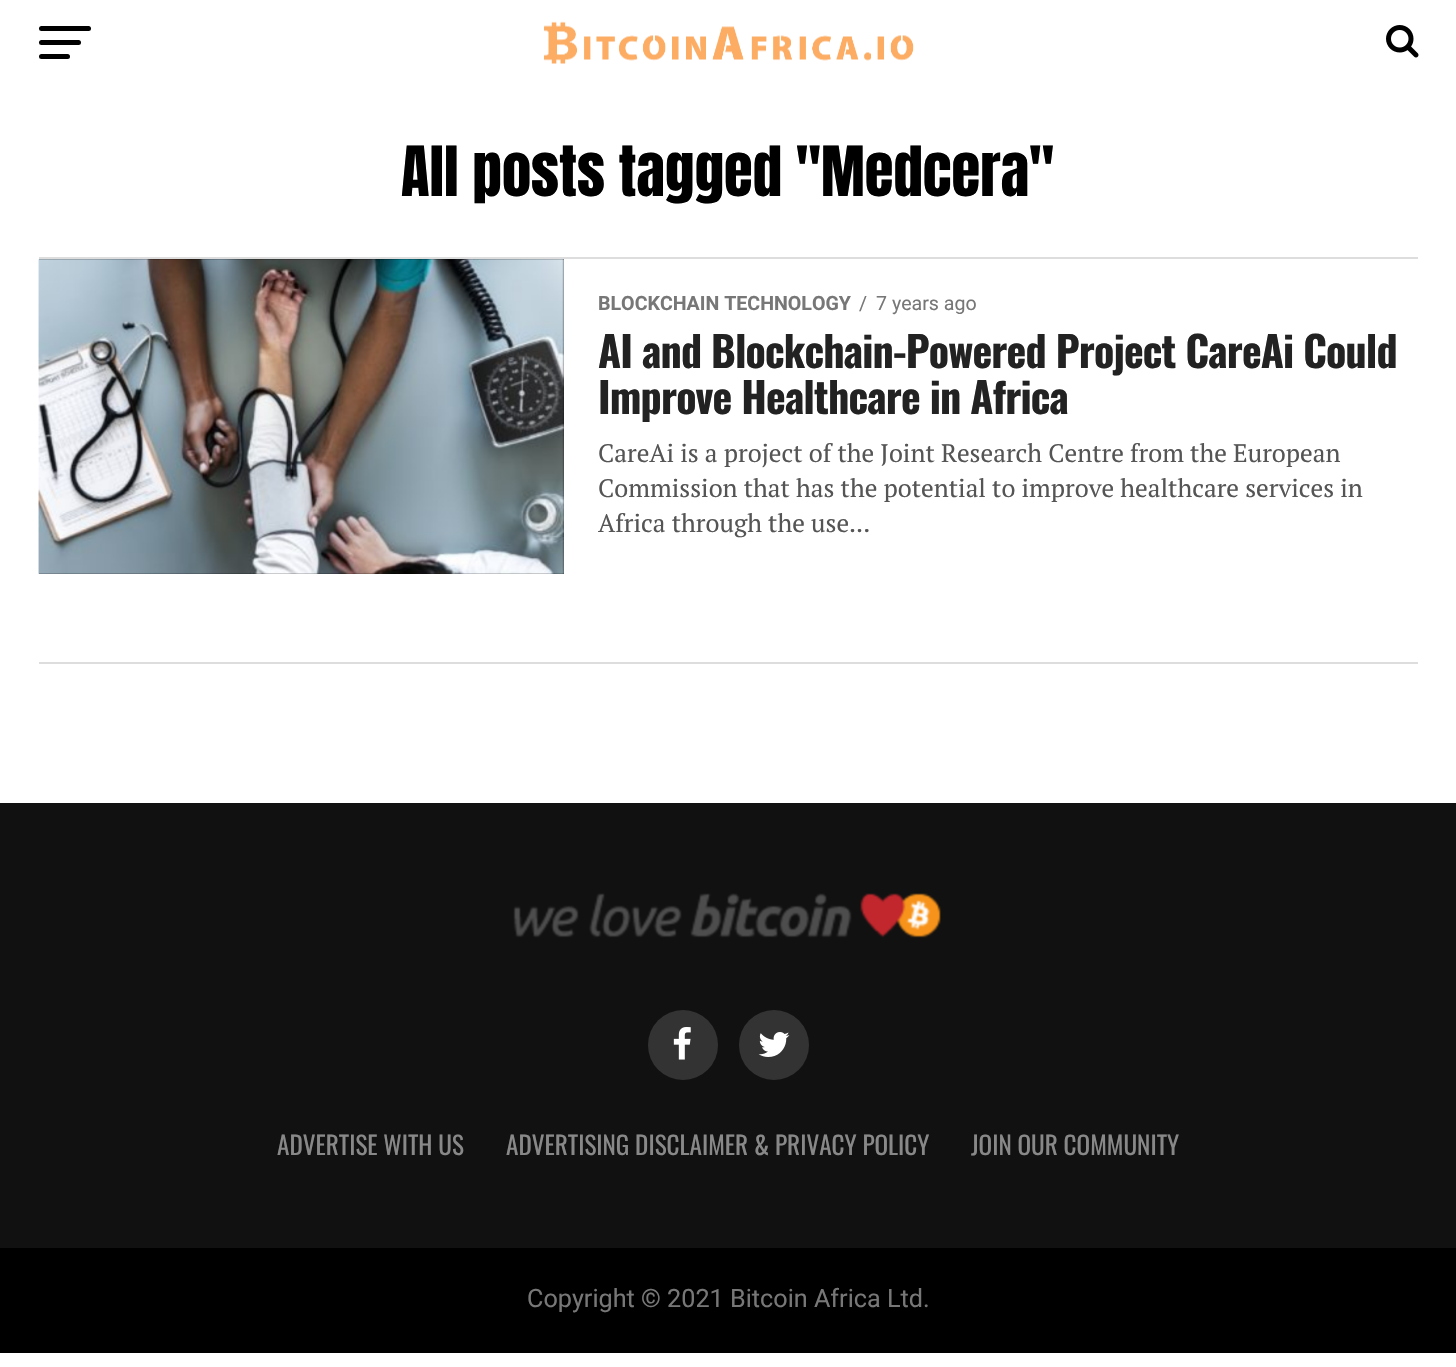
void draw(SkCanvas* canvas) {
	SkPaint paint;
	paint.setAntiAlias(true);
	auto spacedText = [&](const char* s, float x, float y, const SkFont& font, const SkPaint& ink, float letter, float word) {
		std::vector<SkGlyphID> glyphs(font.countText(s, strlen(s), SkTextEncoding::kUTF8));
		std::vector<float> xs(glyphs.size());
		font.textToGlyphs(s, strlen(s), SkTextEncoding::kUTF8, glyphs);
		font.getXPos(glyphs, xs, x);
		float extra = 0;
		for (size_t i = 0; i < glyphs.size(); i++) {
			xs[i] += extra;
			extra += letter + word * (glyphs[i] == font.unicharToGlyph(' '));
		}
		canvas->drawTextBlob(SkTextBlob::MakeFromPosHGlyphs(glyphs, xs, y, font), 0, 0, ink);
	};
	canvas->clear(0xffffffff);
	paint.setColor(0xff000000);
	canvas->drawRoundRect(SkRect::MakeXYWH(39, 26, 52, 5), 2.5, 2.5, paint);
	canvas->drawRoundRect(SkRect::MakeXYWH(39, 40, 42, 5), 2.5, 2.5, paint);
	canvas->drawRoundRect(SkRect::MakeXYWH(39, 54, 31, 5), 2.5, 2.5, paint);
	canvas->drawImageRect(SkImages::DeferredFromEncodedData(SkData::MakeFromFileName("img1.png")), SkRect::MakeXYWH(544, 21, 370, 43), SkSamplingOptions());
	canvas->drawImageRect(SkImages::DeferredFromEncodedData(SkData::MakeFromFileName("img2.png")), SkRect::MakeXYWH(1386, 25, 33, 33), SkSamplingOptions());
	SkFont f1(fontMgr->matchFamilyStyle("Anton", SkFontStyle::Normal()), 58.75);
	f1.setSubpixel(true);
	canvas->drawString("All posts tagged \"Medcera\"", 401, 196, f1, paint);
	paint.setColor(0xffdddddd);
	canvas->drawRect(SkRect::MakeXYWH(39, 257, 1379, 2), paint);
	paint.setColor(0xff000000);
	canvas->drawRect(SkRect::MakeXYWH(39, 259, 525, 315), paint);
	canvas->drawImageRect(SkImages::DeferredFromEncodedData(SkData::MakeFromFileName("img3.png")), SkRect::MakeXYWH(38, 259, 526, 315), SkSamplingOptions());
	SkFont f2(fontMgr->matchFamilyStyle("Roboto", SkFontStyle::Bold()), 19.6);
	f2.setSubpixel(true);
	paint.setColor(0xff777777);
	canvas->drawString("BLOCKCHAIN TECHNOLOGY", 598, 310, f2, paint);
	SkFont f3(fontMgr->matchFamilyStyle("Roboto", SkFontStyle::Normal()), 19.6);
	f3.setSubpixel(true);
	canvas->drawString("/", 859, 310, f3, paint);
	canvas->drawString("7 years ago", 876, 310, f3, paint);
	SkFont f4(fontMgr->matchFamilyStyle("Oswald", SkFontStyle::Bold()), 42);
	f4.setSubpixel(true);
	paint.setColor(0xff222222);
	spacedText("AI and Blockchain-Powered Project CareAi Could", 598, 368, f4, paint, -0.85, 0);
	spacedText("Improve Healthcare in Africa", 598, 414, f4, paint, -0.85, 0);
	SkFont f5(fontMgr->matchFamilyStyle("PT Serif", SkFontStyle::Normal()), 25.2);
	f5.setSubpixel(true);
	paint.setColor(0xff555555);
	canvas->drawString("CareAi is a project of the Joint Research Centre from the European", 598, 462, f5, paint);
	canvas->drawString("Commission that has the potential to improve healthcare services in", 598, 497, f5, paint);
	canvas->drawString("Africa through the use...", 598, 532, f5, paint);
	paint.setColor(0xffdddddd);
	canvas->drawRect(SkRect::MakeXYWH(39, 662, 1379, 2), paint);
	paint.setColor(0xff111111);
	canvas->drawRect(SkRect::MakeXYWH(0, 803, 1456, 445), paint);
	canvas->drawImageRect(SkImages::DeferredFromEncodedData(SkData::MakeFromFileName("img4.png")), SkRect::MakeXYWH(513, 893, 428, 45), SkSamplingOptions());
	paint.setColor(0xff333333);
	canvas->drawCircle(683, 1045, 35, paint);
	canvas->drawImageRect(SkImages::DeferredFromEncodedData(SkData::MakeFromFileName("img5.png")), SkRect::MakeXYWH(673, 1027, 18, 33), SkSamplingOptions());
	canvas->drawCircle(774, 1045, 35, paint);
	canvas->drawImageRect(SkImages::DeferredFromEncodedData(SkData::MakeFromFileName("img6.png")), SkRect::MakeXYWH(758, 1032, 32, 25), SkSamplingOptions());
	SkFont f6(fontMgr->matchFamilyStyle("Oswald", SkFontStyle::Normal()), 25.2);
	f6.setSubpixel(true);
	paint.setColor(0xff888888);
	canvas->drawString("ADVERTISE WITH US", 277, 1155, f6, paint);
	canvas->drawString("ADVERTISING DISCLAIMER & PRIVACY POLICY", 506, 1155, f6, paint);
	canvas->drawString("JOIN OUR COMMUNITY", 971, 1155, f6, paint);
	paint.setColor(0xff000000);
	canvas->drawRect(SkRect::MakeXYWH(0, 1248, 1456, 105), paint);
	SkFont f7(fontMgr->matchFamilyStyle("Roboto", SkFontStyle::Normal()), 25.2);
	f7.setSubpixel(true);
	paint.setColor(0xff777777);
	canvas->drawString("Copyright © 2021 Bitcoin Africa Ltd.", 527, 1307, f7, paint);
}
